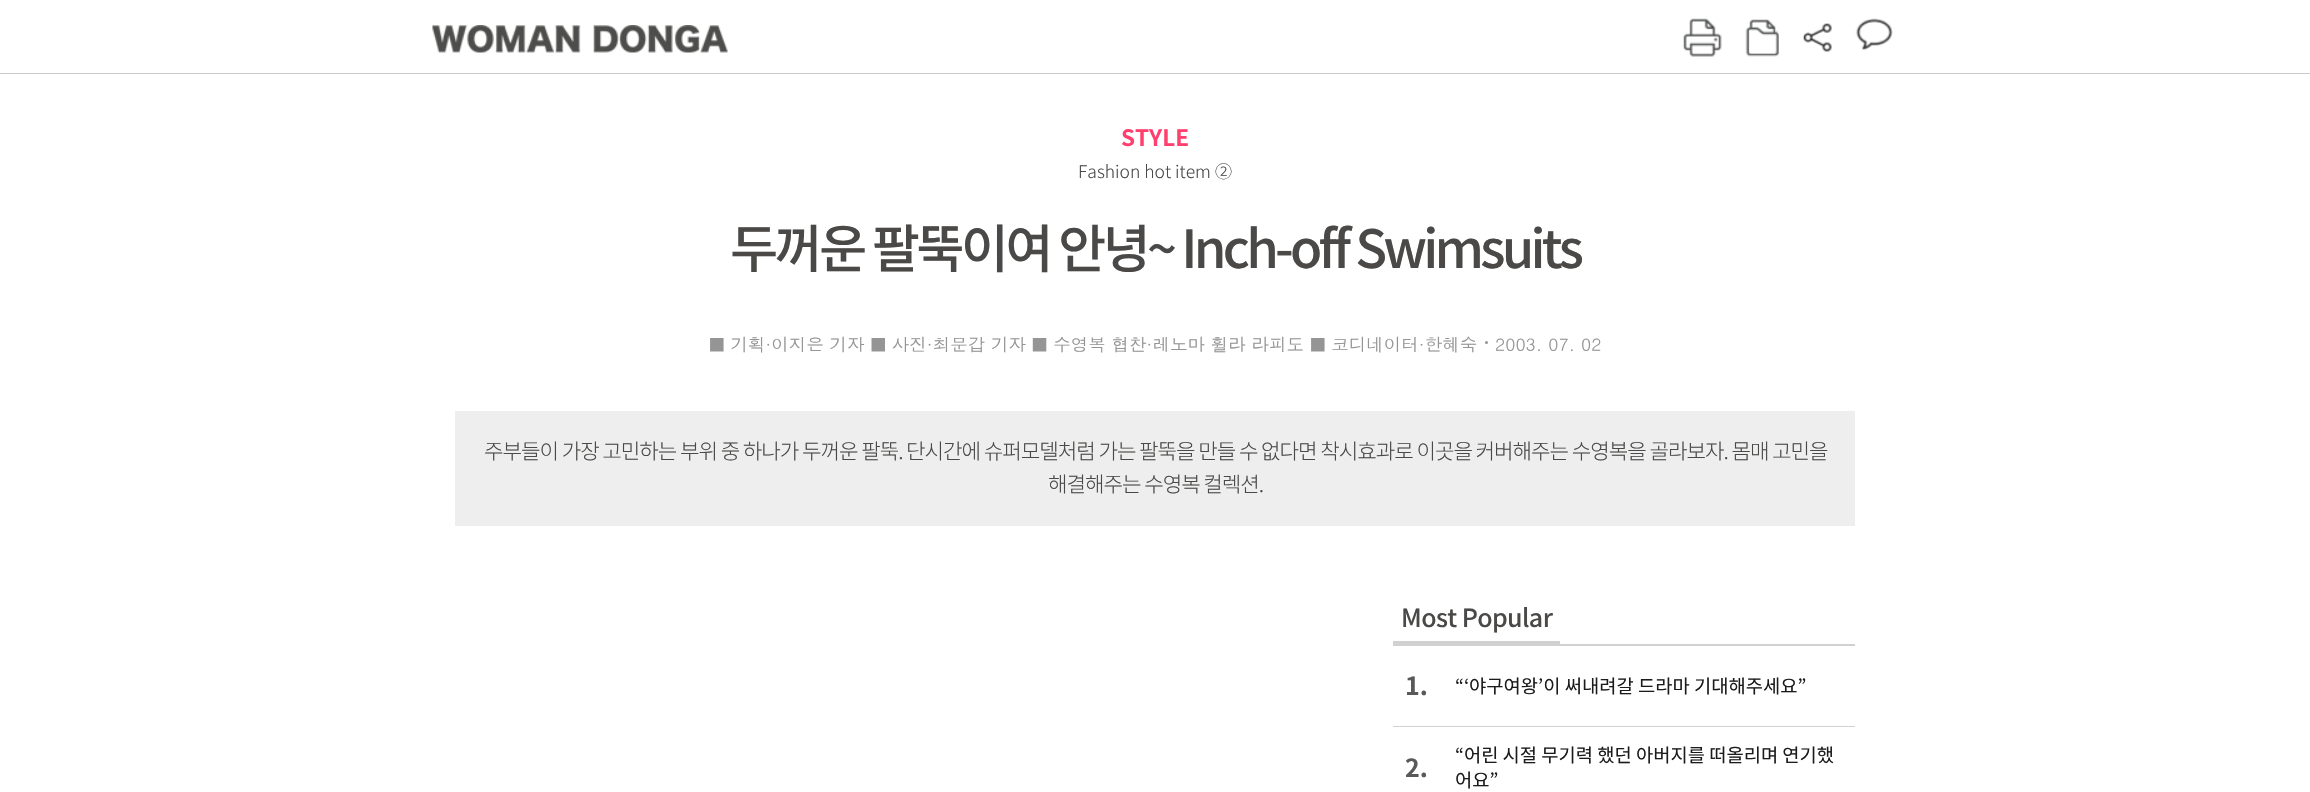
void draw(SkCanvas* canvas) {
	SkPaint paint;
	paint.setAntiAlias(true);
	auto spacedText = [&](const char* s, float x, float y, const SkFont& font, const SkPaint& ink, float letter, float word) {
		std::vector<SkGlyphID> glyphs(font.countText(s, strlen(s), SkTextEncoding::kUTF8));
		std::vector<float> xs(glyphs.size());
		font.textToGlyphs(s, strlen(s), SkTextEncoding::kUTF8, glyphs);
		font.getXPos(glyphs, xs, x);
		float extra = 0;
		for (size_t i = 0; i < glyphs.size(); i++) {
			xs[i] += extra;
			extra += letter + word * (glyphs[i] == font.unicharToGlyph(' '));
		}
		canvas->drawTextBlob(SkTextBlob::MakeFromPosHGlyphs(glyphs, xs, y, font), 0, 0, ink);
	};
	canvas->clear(0xffffffff);
	paint.setColor(0xffcbcbcb);
	canvas->drawRect(SkRect::MakeXYWH(0, 73, 2310, 1), paint);
	canvas->drawImageRect(SkImages::DeferredFromEncodedData(SkData::MakeFromFileName("img1.png")), SkRect::MakeXYWH(432, 25, 296, 28), SkSamplingOptions());
	canvas->drawImageRect(SkImages::DeferredFromEncodedData(SkData::MakeFromFileName("img2.png")), SkRect::MakeXYWH(1683, 18, 39, 39), SkSamplingOptions());
	canvas->drawImageRect(SkImages::DeferredFromEncodedData(SkData::MakeFromFileName("img3.png")), SkRect::MakeXYWH(1745, 19, 34, 38), SkSamplingOptions());
	canvas->drawImageRect(SkImages::DeferredFromEncodedData(SkData::MakeFromFileName("img4.png")), SkRect::MakeXYWH(1803, 23, 29, 29), SkSamplingOptions());
	canvas->drawImageRect(SkImages::DeferredFromEncodedData(SkData::MakeFromFileName("img5.png")), SkRect::MakeXYWH(1855, 18, 38, 33), SkSamplingOptions());
	SkFont f1(fontMgr->matchFamilyStyle("Noto Sans KR", SkFontStyle::Bold()), 22.5);
	f1.setSubpixel(true);
	paint.setColor(0xffff3f6e);
	canvas->drawString("STYLE", 1121, 146, f1, paint);
	SkFont f2(fontMgr->matchFamilyStyle("Noto Sans KR", SkFontStyle(300, SkFontStyle::kNormal_Width, SkFontStyle::kUpright_Slant)), 17.5);
	f2.setSubpixel(true);
	paint.setColor(0xff4a4948);
	canvas->drawString("Fashion hot item ②", 1078, 178, f2, paint);
	SkFont f3(fontMgr->matchFamilyStyle("Noto Sans KR", SkFontStyle(500, SkFontStyle::kNormal_Width, SkFontStyle::kUpright_Slant)), 52.5);
	f3.setSubpixel(true);
	spacedText("두꺼운 팔뚝이여 안녕~ Inch-off Swimsuits", 730, 268, f3, paint, -3.75, 0);
	SkFont f4(fontMgr->matchFamilyStyle("Dotum", SkFontStyle::Normal()), 17.5);
	f4.setSubpixel(true);
	paint.setColor(0xff959595);
	canvas->drawString("■ 기획·이지은 기자 ■ 사진·최문갑 기자 ■ 수영복 협찬·레노마 휠라 라피도 ■ 코디네이터·한혜숙", 709, 351, f4, paint);
	canvas->drawCircle(1486.5, 342.5, 1.5, paint);
	canvas->drawString("2003. 07. 02", 1495, 351, f4, paint);
	paint.setColor(0xffeeeeee);
	canvas->drawRect(SkRect::MakeXYWH(455, 411, 1400, 115), paint);
	SkFont f5(fontMgr->matchFamilyStyle("Noto Sans KR", SkFontStyle(300, SkFontStyle::kNormal_Width, SkFontStyle::kUpright_Slant)), 21.25);
	f5.setSubpixel(true);
	paint.setColor(0xff4a4948);
	spacedText("주부들이 가장 고민하는 부위 중 하나가 두꺼운 팔뚝. 단시간에 슈퍼모델처럼 가는 팔뚝을 만들 수 없다면 착시효과로 이곳을 커버해주는 수영복을 골라보자. 몸매 고민을", 484, 459, f5, paint, -1.05, 0);
	spacedText("해결해주는 수영복 컬렉션.", 1048, 492, f5, paint, -1.05, 0);
	SkFont f6(fontMgr->matchFamilyStyle("Noto Sans KR", SkFontStyle(500, SkFontStyle::kNormal_Width, SkFontStyle::kUpright_Slant)), 25);
	f6.setSubpixel(true);
	spacedText("Most Popular", 1401, 627, f6, paint, -0.6, 0);
	paint.setColor(0xffd1d1d1);
	canvas->drawRect(SkRect::MakeXYWH(1393, 641, 167, 3), paint);
	canvas->drawRect(SkRect::MakeXYWH(1393, 644, 462, 2), paint);
	SkFont f7(fontMgr->matchFamilyStyle("Noto Sans KR", SkFontStyle::Bold()), 25);
	f7.setSubpixel(true);
	paint.setColor(0xff595959);
	canvas->drawString("1.", 1405, 695, f7, paint);
	SkFont f8(fontMgr->matchFamilyStyle("Noto Sans KR", SkFontStyle::Normal()), 18.75);
	f8.setSubpixel(true);
	paint.setColor(0xff1b1b1b);
	canvas->drawString("“‘야구여왕’이 써내려갈 드라마 기대해주세요”", 1455, 693, f8, paint);
	paint.setColor(0xffd1d1d1);
	canvas->drawRect(SkRect::MakeXYWH(1393, 726, 462, 1), paint);
	paint.setColor(0xff595959);
	canvas->drawString("2.", 1405, 777, f7, paint);
	paint.setColor(0xff1b1b1b);
	canvas->drawString("“어린 시절 무기력 했던 아버지를 떠올리며 연기했", 1455, 762, f8, paint);
	canvas->drawString("어요”", 1455, 787, f8, paint);
}
